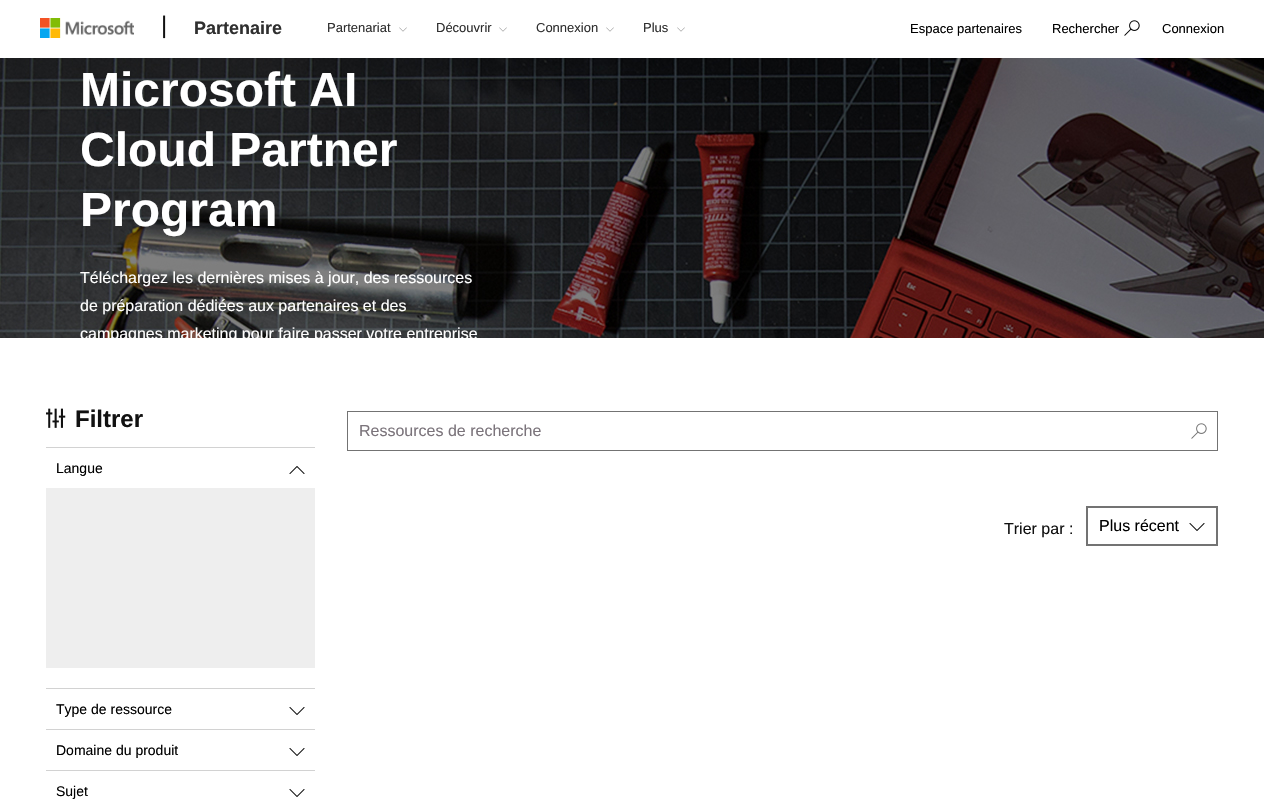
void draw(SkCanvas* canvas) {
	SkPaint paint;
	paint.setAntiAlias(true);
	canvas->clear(0xffffffff);
	canvas->drawImageRect(SkImages::DeferredFromEncodedData(SkData::MakeFromFileName("img1.png")), SkRect::MakeXYWH(40, 18, 94, 20), SkSamplingOptions());
	SkFont f1(fontMgr->matchFamilyStyle("Liberation Sans", SkFontStyle::Normal()), 24);
	f1.setSubpixel(true);
	paint.setColor(0xff111111);
	canvas->drawString("|", 161, 33, f1, paint);
	SkFont f2(fontMgr->matchFamilyStyle("Liberation Sans", SkFontStyle::Bold()), 18);
	f2.setSubpixel(true);
	paint.setColor(0xff2f2f2f);
	canvas->drawString("Partenaire", 194, 34, f2, paint);
	SkFont f3(fontMgr->matchFamilyStyle("Liberation Sans", SkFontStyle::Normal()), 13);
	f3.setSubpixel(true);
	canvas->drawString("Partenariat", 327, 32, f3, paint);
	canvas->drawImageRect(SkImages::DeferredFromEncodedData(SkData::MakeFromFileName("img2.png")), SkRect::MakeXYWH(399, 27, 8, 5), SkSamplingOptions());
	canvas->drawString("Découvrir", 436, 32, f3, paint);
	canvas->drawImageRect(SkImages::DeferredFromEncodedData(SkData::MakeFromFileName("img2.png")), SkRect::MakeXYWH(499, 27, 8, 5), SkSamplingOptions());
	canvas->drawString("Connexion", 536, 32, f3, paint);
	canvas->drawImageRect(SkImages::DeferredFromEncodedData(SkData::MakeFromFileName("img2.png")), SkRect::MakeXYWH(606, 27, 8, 5), SkSamplingOptions());
	canvas->drawString("Plus", 643, 32, f3, paint);
	canvas->drawImageRect(SkImages::DeferredFromEncodedData(SkData::MakeFromFileName("img2.png")), SkRect::MakeXYWH(677, 27, 8, 5), SkSamplingOptions());
	paint.setColor(0xff000000);
	canvas->drawString("Espace partenaires", 910, 33, f3, paint);
	canvas->drawString("Rechercher", 1052, 33, f3, paint);
	canvas->drawImageRect(SkImages::DeferredFromEncodedData(SkData::MakeFromFileName("img3.png")), SkRect::MakeXYWH(1124, 20, 16, 16), SkSamplingOptions());
	canvas->drawString("Connexion", 1162, 33, f3, paint);
	canvas->drawImageRect(SkImages::DeferredFromEncodedData(SkData::MakeFromFileName("img4.png")), SkRect::MakeXYWH(0, 58, 1264, 280), SkSamplingOptions());
	SkFont f4(fontMgr->matchFamilyStyle("Liberation Sans", SkFontStyle::Bold()), 48);
	f4.setSubpixel(true);
	paint.setColor(0xffffffff);
	canvas->drawString("Microsoft AI", 80, 106, f4, paint);
	canvas->drawString("Cloud Partner", 80, 166, f4, paint);
	canvas->drawString("Program", 80, 226, f4, paint);
	SkFont f5(fontMgr->matchFamilyStyle("Liberation Sans", SkFontStyle::Normal()), 16);
	f5.setSubpixel(true);
	canvas->drawString("Téléchargez les dernières mises à jour, des ressources", 80, 283, f5, paint);
	canvas->drawString("de préparation dédiées aux partenaires et des", 80, 311, f5, paint);
	canvas->drawString("campagnes marketing pour faire passer votre entreprise", 80, 339, f5, paint);
	canvas->drawImageRect(SkImages::DeferredFromEncodedData(SkData::MakeFromFileName("img5.png")), SkRect::MakeXYWH(46, 408, 20, 20), SkSamplingOptions());
	SkFont f6(fontMgr->matchFamilyStyle("Liberation Sans", SkFontStyle::Bold()), 24);
	f6.setSubpixel(true);
	paint.setColor(0xff111111);
	canvas->drawString("Filtrer", 75, 427, f6, paint);
	paint.setColor(0xffd2d2d2);
	canvas->drawRect(SkRect::MakeXYWH(46, 447, 269, 1), paint);
	SkFont f7(fontMgr->matchFamilyStyle("Liberation Sans", SkFontStyle::Normal()), 14);
	f7.setSubpixel(true);
	paint.setColor(0xff000000);
	canvas->drawString("Langue", 56, 473, f7, paint);
	canvas->drawImageRect(SkImages::DeferredFromEncodedData(SkData::MakeFromFileName("img6.png")), SkRect::MakeXYWH(289, 466, 16, 8), SkSamplingOptions());
	paint.setColor(0xffeeeeee);
	canvas->drawRect(SkRect::MakeXYWH(46, 488, 269, 180), paint);
	paint.setColor(0xffd2d2d2);
	canvas->drawRect(SkRect::MakeXYWH(46, 688, 269, 1), paint);
	paint.setColor(0xff000000);
	canvas->drawString("Type de ressource", 56, 714, f7, paint);
	canvas->drawImageRect(SkImages::DeferredFromEncodedData(SkData::MakeFromFileName("img7.png")), SkRect::MakeXYWH(289, 707, 16, 8), SkSamplingOptions());
	paint.setColor(0xffd2d2d2);
	canvas->drawRect(SkRect::MakeXYWH(46, 729, 269, 1), paint);
	paint.setColor(0xff000000);
	canvas->drawString("Domaine du produit", 56, 755, f7, paint);
	canvas->drawImageRect(SkImages::DeferredFromEncodedData(SkData::MakeFromFileName("img7.png")), SkRect::MakeXYWH(289, 748, 16, 8), SkSamplingOptions());
	paint.setColor(0xffd2d2d2);
	canvas->drawRect(SkRect::MakeXYWH(46, 770, 269, 1), paint);
	paint.setColor(0xff000000);
	canvas->drawString("Sujet", 56, 796, f7, paint);
	canvas->drawImageRect(SkImages::DeferredFromEncodedData(SkData::MakeFromFileName("img7.png")), SkRect::MakeXYWH(289, 789, 16, 8), SkSamplingOptions());
	paint.setColor(0xff111111);
	canvas->drawString("Trier par :", 1004, 534, f5, paint);
	paint.setStroke(true);
	paint.setStrokeWidth(2);
	paint.setColor(0xff737373);
	canvas->drawRect(SkRect::MakeXYWH(1087, 507, 130, 38), paint);
	paint.setStroke(false);
	paint.setColor(0xff000000);
	canvas->drawString("Plus récent", 1099, 531, f5, paint);
	canvas->drawImageRect(SkImages::DeferredFromEncodedData(SkData::MakeFromFileName("img7.png")), SkRect::MakeXYWH(1189, 523, 16, 8), SkSamplingOptions());
	paint.setStroke(true);
	paint.setStrokeWidth(1);
	paint.setColor(0xff737373);
	canvas->drawRect(SkRect::MakeXYWH(347.5, 411.5, 870, 39), paint);
	paint.setStroke(false);
	paint.setColor(0xff7b747b);
	canvas->drawString("Ressources de recherche", 359, 436, f5, paint);
	canvas->drawImageRect(SkImages::DeferredFromEncodedData(SkData::MakeFromFileName("img8.png")), SkRect::MakeXYWH(1191, 423, 16, 16), SkSamplingOptions());
}
